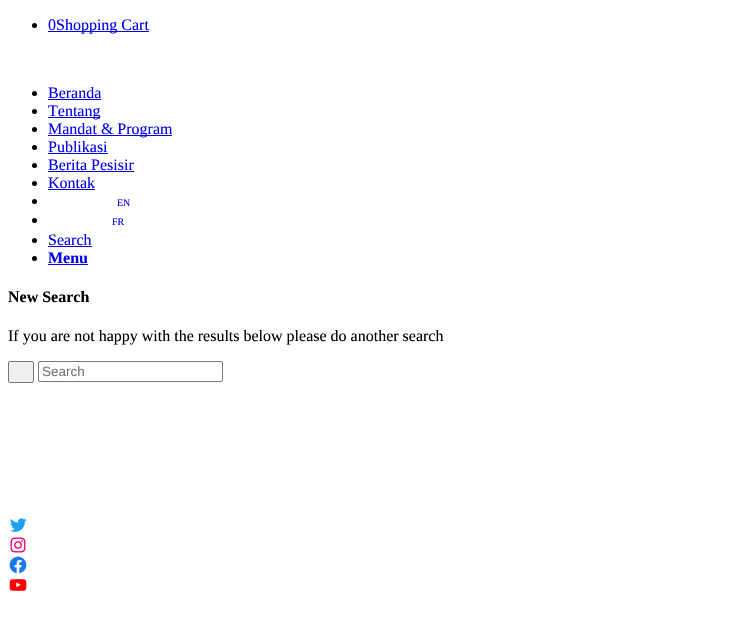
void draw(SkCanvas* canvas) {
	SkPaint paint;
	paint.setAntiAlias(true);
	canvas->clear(0xffffffff);
	paint.setColor(0xff000000);
	canvas->drawCircle(34.5, 25.5, 2.5, paint);
	paint.setColor(0xff0000ee);
	canvas->drawRect(SkRect::MakeXYWH(48, 31, 101, 1), paint);
	SkFont f1(fontMgr->matchFamilyStyle("Liberation Serif", SkFontStyle::Normal()), 16);
	f1.setSubpixel(true);
	canvas->drawString("0Shopping Cart", 48, 30, f1, paint);
	paint.setColor(0xff000000);
	canvas->drawCircle(34.5, 93.5, 2.5, paint);
	paint.setColor(0xff0000ee);
	canvas->drawString("Beranda", 48, 98, f1, paint);
	canvas->drawRect(SkRect::MakeXYWH(48, 99, 53, 1), paint);
	paint.setColor(0xff000000);
	canvas->drawCircle(34.5, 111.5, 2.5, paint);
	paint.setColor(0xff0000ee);
	canvas->drawRect(SkRect::MakeXYWH(48, 117, 52, 1), paint);
	canvas->drawString("Tentang", 48, 116, f1, paint);
	paint.setColor(0xff000000);
	canvas->drawCircle(34.5, 129.5, 2.5, paint);
	paint.setColor(0xff0000ee);
	canvas->drawRect(SkRect::MakeXYWH(48, 135, 124, 1), paint);
	canvas->drawString("Mandat & Program", 48, 134, f1, paint);
	paint.setColor(0xff000000);
	canvas->drawCircle(34.5, 147.5, 2.5, paint);
	paint.setColor(0xff0000ee);
	canvas->drawString("Publikasi", 48, 152, f1, paint);
	canvas->drawRect(SkRect::MakeXYWH(48, 153, 60, 1), paint);
	paint.setColor(0xff000000);
	canvas->drawCircle(34.5, 165.5, 2.5, paint);
	paint.setColor(0xff0000ee);
	canvas->drawString("Berita Pesisir", 48, 170, f1, paint);
	canvas->drawRect(SkRect::MakeXYWH(48, 171, 86, 1), paint);
	paint.setColor(0xff000000);
	canvas->drawCircle(34.5, 183.5, 2.5, paint);
	paint.setColor(0xff0000ee);
	canvas->drawString("Kontak", 48, 188, f1, paint);
	canvas->drawRect(SkRect::MakeXYWH(48, 189, 47, 1), paint);
	paint.setColor(0xff000000);
	canvas->drawCircle(34.5, 201.5, 2.5, paint);
	SkFont f2(fontMgr->matchFamilyStyle("Liberation Serif", SkFontStyle::Normal()), 10);
	f2.setSubpixel(true);
	paint.setColor(0xff0000ee);
	canvas->drawString("EN", 117, 206, f2, paint);
	paint.setColor(0xff000000);
	canvas->drawCircle(34.5, 220.5, 2.5, paint);
	paint.setColor(0xff0000ee);
	canvas->drawString("FR", 112, 225, f2, paint);
	paint.setColor(0xff000000);
	canvas->drawCircle(34.5, 240.5, 2.5, paint);
	paint.setColor(0xff0000ee);
	canvas->drawString("Search", 48, 245, f1, paint);
	canvas->drawRect(SkRect::MakeXYWH(48, 246, 44, 1), paint);
	paint.setColor(0xff000000);
	canvas->drawCircle(34.5, 258.5, 2.5, paint);
	SkFont f3(fontMgr->matchFamilyStyle("Liberation Serif", SkFontStyle::Bold()), 16);
	f3.setSubpixel(true);
	paint.setColor(0xff0000ee);
	canvas->drawString("Menu", 48, 263, f3, paint);
	canvas->drawRect(SkRect::MakeXYWH(48, 264, 40, 1), paint);
	paint.setColor(0xff000000);
	canvas->drawString("New Search", 8, 302, f3, paint);
	canvas->drawString("If you are not happy with the results below please do another search", 8, 341, f1, paint);
	paint.setColor(0xffefefef);
	canvas->drawRoundRect(SkRect::MakeXYWH(8.5, 361.5, 25, 21), 1.5, 1.5, paint);
	paint.setStroke(true);
	paint.setStrokeWidth(1);
	paint.setColor(0xff767676);
	canvas->drawRoundRect(SkRect::MakeXYWH(8.5, 361.5, 25, 21), 1.5, 1.5, paint);
	canvas->drawRoundRect(SkRect::MakeXYWH(38.5, 361.5, 184, 20), 1.5, 1.5, paint);
	SkFont f4(fontMgr->matchFamilyStyle("Liberation Sans", SkFontStyle::Normal()), 13.5);
	f4.setSubpixel(true);
	paint.setStroke(false);
	paint.setColor(0xff757575);
	canvas->drawString("Search", 42, 376, f4, paint);
	canvas->drawImageRect(SkImages::DeferredFromEncodedData(SkData::MakeFromFileName("img1.png")), SkRect::MakeXYWH(10, 518, 17, 14), SkSamplingOptions());
	canvas->drawImageRect(SkImages::DeferredFromEncodedData(SkData::MakeFromFileName("img2.png")), SkRect::MakeXYWH(10, 537, 16, 16), SkSamplingOptions());
	canvas->drawImageRect(SkImages::DeferredFromEncodedData(SkData::MakeFromFileName("img3.png")), SkRect::MakeXYWH(9, 556, 18, 18), SkSamplingOptions());
	canvas->drawImageRect(SkImages::DeferredFromEncodedData(SkData::MakeFromFileName("img4.png")), SkRect::MakeXYWH(9, 579, 18, 12), SkSamplingOptions());
}
